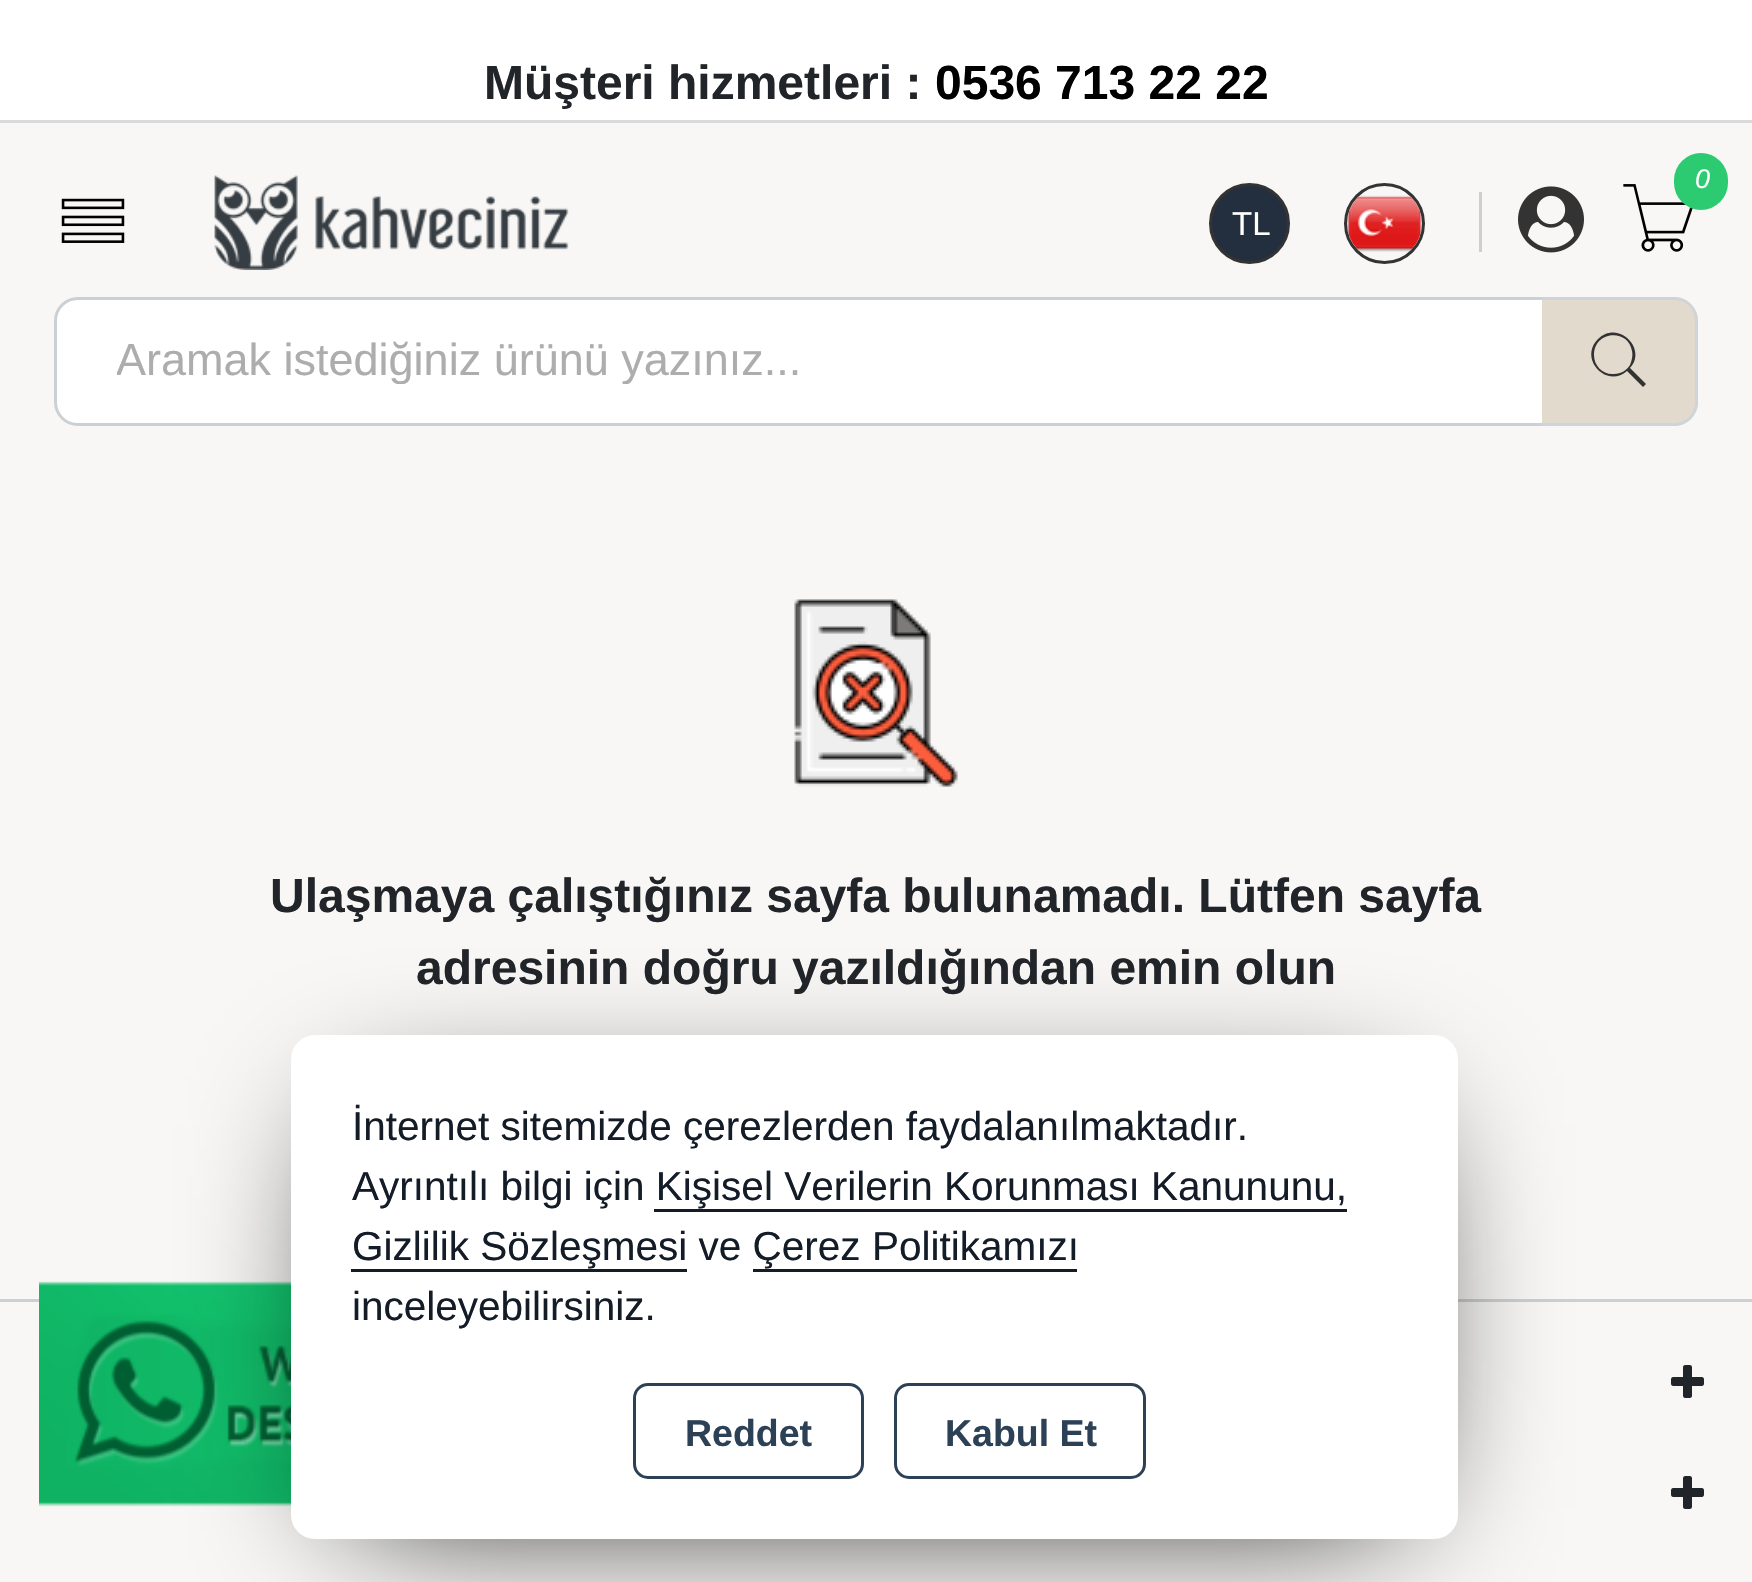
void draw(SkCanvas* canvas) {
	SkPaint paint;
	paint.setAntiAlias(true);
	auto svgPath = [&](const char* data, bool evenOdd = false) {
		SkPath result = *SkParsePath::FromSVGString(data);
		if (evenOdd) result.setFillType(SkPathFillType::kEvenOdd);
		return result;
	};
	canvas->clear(0xffffffff);
	SkFont f1(fontMgr->matchFamilyStyle("Liberation Sans", SkFontStyle::Bold()), 48);
	f1.setSubpixel(true);
	paint.setColor(0xff212529);
	canvas->drawString("Müşteri hizmetleri :", 484, 99, f1, paint);
	paint.setColor(0xff000000);
	canvas->drawString("0536 713 22 22", 935, 99, f1, paint);
	paint.setColor(0xffdadada);
	canvas->drawRect(SkRect::MakeXYWH(0, 120, 1752, 3), paint);
	paint.setColor(0xfff8f7f5);
	canvas->drawRect(SkRect::MakeXYWH(0, 123, 1752, 1459), paint);
	canvas->drawImageRect(SkImages::DeferredFromEncodedData(SkData::MakeFromFileName("img1.png")), SkRect::MakeXYWH(61, 198, 64, 45), SkSamplingOptions());
	canvas->drawImageRect(SkImages::DeferredFromEncodedData(SkData::MakeFromFileName("img2.png")), SkRect::MakeXYWH(214, 175, 355, 95), SkSamplingOptions());
	canvas->drawImageRect(SkImages::DeferredFromEncodedData(SkData::MakeFromFileName("img3.png")), SkRect::MakeXYWH(1623, 184, 70, 68), SkSamplingOptions());
	paint.setColor(0xff2dcb71);
	canvas->drawRoundRect(SkRect::MakeXYWH(1674, 153, 54, 57), 27, 27, paint);
	SkFont f2(fontMgr->matchFamilyStyle("Liberation Sans", SkFontStyle::Italic()), 27);
	f2.setSubpixel(true);
	paint.setColor(0xffffffff);
	canvas->drawString("0", 1695, 188, f2, paint);
	canvas->drawImageRect(SkImages::DeferredFromEncodedData(SkData::MakeFromFileName("img4.png")), SkRect::MakeXYWH(1518, 186, 66, 67), SkSamplingOptions());
	paint.setColor(0xff232f3e);
	canvas->drawCircle(1249.5, 223.5, 39, paint);
	paint.setStroke(true);
	paint.setStrokeWidth(3);
	paint.setColor(0xff333333);
	canvas->drawCircle(1249.5, 223.5, 39, paint);
	SkFont f3(fontMgr->matchFamilyStyle("Liberation Sans", SkFontStyle::Normal()), 33);
	f3.setSubpixel(true);
	paint.setStroke(false);
	paint.setColor(0xffffffff);
	canvas->drawString("TL", 1232, 235, f3, paint);
	paint.setStroke(true);
	paint.setColor(0xff333333);
	canvas->drawCircle(1384.5, 223.5, 39, paint);
	canvas->drawImageRect(SkImages::DeferredFromEncodedData(SkData::MakeFromFileName("img5.png")), SkRect::MakeXYWH(1347, 195, 75, 57), SkSamplingOptions());
	paint.setStroke(false);
	paint.setColor(0xffcecece);
	canvas->drawRect(SkRect::MakeXYWH(1479, 192, 3, 60), paint);
	paint.setColor(0xffffffff);
	canvas->drawPath(svgPath("M78 298.5H1543.5V424.5H78C65.5 424.5 55.5 414.5 55.5 402V321C55.5 308.5 65.5 298.5 78 298.5Z"), paint);
	paint.setStroke(true);
	paint.setColor(0xffcbd0d4);
	canvas->drawPath(svgPath("M78 298.5H1543.5V424.5H78C65.5 424.5 55.5 414.5 55.5 402V321C55.5 308.5 65.5 298.5 78 298.5Z"), paint);
	canvas->save();
	canvas->clipRect(SkRect::MakeXYWH(117, 333, 1389, 51));
	SkFont f4(fontMgr->matchFamilyStyle("Liberation Sans", SkFontStyle::Normal()), 45);
	f4.setSubpixel(true);
	paint.setStroke(false);
	paint.setColor(0xffadadad);
	canvas->drawString("Aramak istediğiniz ürünü yazınız...", 116, 375, f4, paint);
	canvas->restore();
	paint.setColor(0xffe2dacc);
	canvas->drawPath(svgPath("M1542 297H1674C1687.5 297 1698 307.5 1698 321V402C1698 415.5 1687.5 426 1674 426H1542Z"), paint);
	paint.setColor(0xffced4da);
	canvas->drawPath(svgPath("M1542 297H1674C1687 297 1698 308 1698 321V402C1698 415 1687 426 1674 426H1542ZM1542 300H1674C1686 300 1695 309 1695 321V402C1695 414 1686 423 1674 423H1542Z", true), paint);
	paint.setColor(0xff333333);
	canvas->drawPath(svgPath("M1646 384L1630 368C1648 349 1618 319 1598 339C1578 359 1607 389 1627 371L1643 387ZM1594 355C1594 331 1628 328 1632 351C1633 355 1632 360 1630 365C1627 370 1621 374 1614 374C1603 375 1594 366 1594 355Z"), paint);
	canvas->drawImageRect(SkImages::DeferredFromEncodedData(SkData::MakeFromFileName("img6.png")), SkRect::MakeXYWH(794, 599, 164, 188), SkSamplingOptions());
	paint.setColor(0xff212529);
	canvas->drawString("Ulaşmaya çalıştığınız sayfa bulunamadı. Lütfen sayfa", 270, 912, f1, paint);
	canvas->drawString("adresinin doğru yazıldığından emin olun", 416, 984, f1, paint);
	paint.setColor(0xffcbd0d4);
	canvas->drawRect(SkRect::MakeXYWH(0, 1299, 1752, 3), paint);
	canvas->drawImageRect(SkImages::DeferredFromEncodedData(SkData::MakeFromFileName("img7.png")), SkRect::MakeXYWH(39, 1281, 252, 226), SkSamplingOptions());
	canvas->drawImageRect(SkImages::DeferredFromEncodedData(SkData::MakeFromFileName("img8.png")), SkRect::MakeXYWH(1671, 1365, 33, 33), SkSamplingOptions());
	canvas->drawImageRect(SkImages::DeferredFromEncodedData(SkData::MakeFromFileName("img8.png")), SkRect::MakeXYWH(1671, 1476, 33, 33), SkSamplingOptions());
	paint.setColor(0xff000000);
	paint.setMaskFilter(SkMaskFilter::MakeBlur(kNormal_SkBlurStyle, 75));
	canvas->drawRect(SkRect::MakeXYWH(351, 1125, 1047, 384), paint);
	paint.setMaskFilter(nullptr);
	paint.setColor(0xffffffff);
	canvas->drawRoundRect(SkRect::MakeXYWH(291, 1035, 1167, 504), 24, 24, paint);
	SkFont f5(fontMgr->matchFamilyStyle("Liberation Sans", SkFontStyle::Normal()), 40.5);
	f5.setSubpixel(true);
	paint.setColor(0xff131c27);
	canvas->drawString("İnternet sitemizde çerezlerden faydalanılmaktadır.", 352, 1140, f5, paint);
	canvas->drawString("Ayrıntılı bilgi için Kişisel Verilerin Korunması Kanununu,", 352, 1200, f5, paint);
	canvas->drawRect(SkRect::MakeXYWH(654, 1209, 693, 3), paint);
	canvas->drawString("Gizlilik Sözleşmesi ve Çerez Politikamızı", 352, 1260, f5, paint);
	canvas->drawRect(SkRect::MakeXYWH(351, 1269, 336, 3), paint);
	canvas->drawRect(SkRect::MakeXYWH(753, 1269, 324, 3), paint);
	canvas->drawString("inceleyebilirsiniz.", 352, 1320, f5, paint);
	paint.setStroke(true);
	paint.setColor(0xff2d4156);
	canvas->drawRoundRect(SkRect::MakeXYWH(634.5, 1384.5, 228, 93), 13.5, 13.5, paint);
	SkFont f6(fontMgr->matchFamilyStyle("Liberation Sans", SkFontStyle::Bold()), 37.5);
	f6.setSubpixel(true);
	paint.setStroke(false);
	canvas->drawString("Reddet", 685, 1446, f6, paint);
	paint.setStroke(true);
	canvas->drawRoundRect(SkRect::MakeXYWH(895.5, 1384.5, 249, 93), 13.5, 13.5, paint);
	paint.setStroke(false);
	canvas->drawString("Kabul Et", 945, 1446, f6, paint);
}
